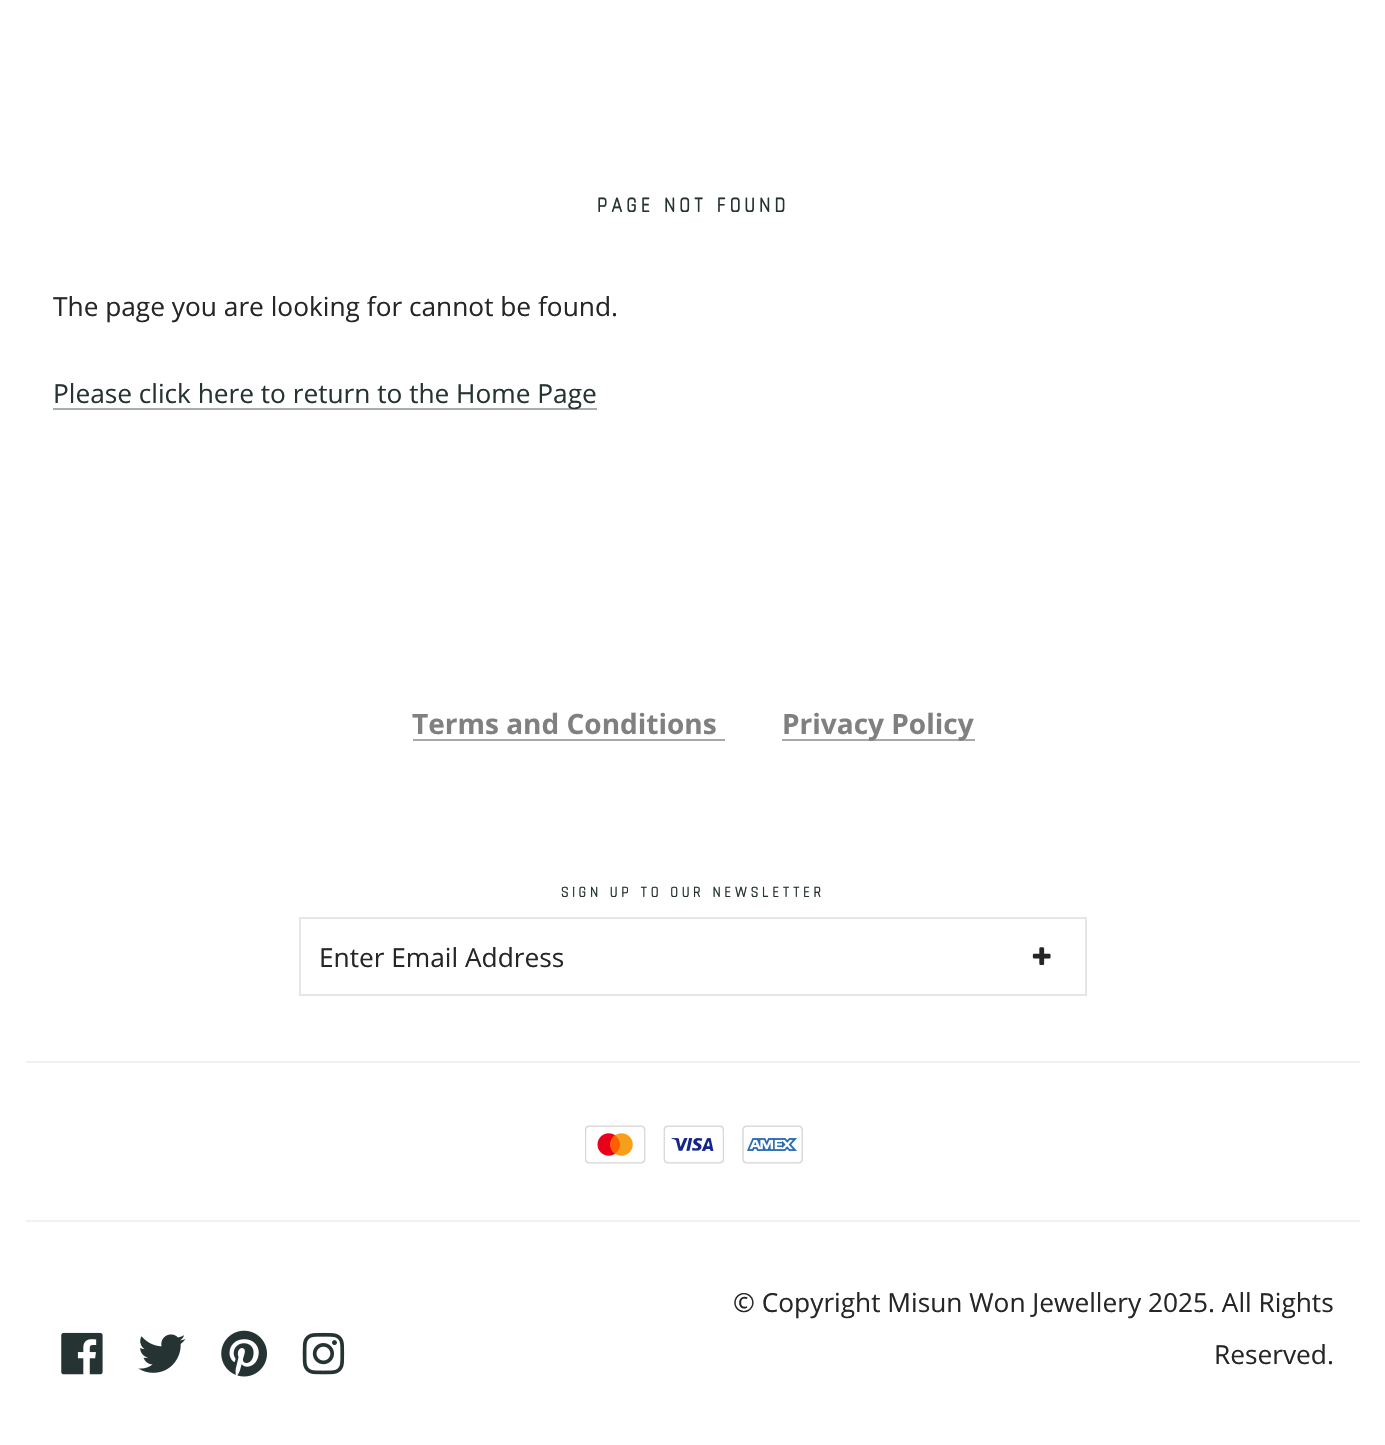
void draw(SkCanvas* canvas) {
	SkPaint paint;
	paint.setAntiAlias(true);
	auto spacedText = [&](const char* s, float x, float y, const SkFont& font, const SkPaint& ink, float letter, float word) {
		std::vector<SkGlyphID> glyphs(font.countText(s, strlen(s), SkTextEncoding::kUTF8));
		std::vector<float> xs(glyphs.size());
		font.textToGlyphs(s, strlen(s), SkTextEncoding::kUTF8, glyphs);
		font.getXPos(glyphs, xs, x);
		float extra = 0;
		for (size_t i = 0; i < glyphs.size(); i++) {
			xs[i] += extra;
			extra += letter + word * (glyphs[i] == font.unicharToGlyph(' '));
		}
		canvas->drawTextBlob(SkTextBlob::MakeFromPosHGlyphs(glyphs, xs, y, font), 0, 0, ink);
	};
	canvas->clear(0xffffffff);
	SkFont f1(fontMgr->matchFamilyStyle("Chathura", SkFontStyle::Bold()), 35.75);
	f1.setSubpixel(true);
	paint.setColor(0xff263333);
	spacedText("PAGE NOT FOUND", 597, 212, f1, paint, 3.5, 0);
	SkFont f2(fontMgr->matchFamilyStyle("Open Sans", SkFontStyle::Normal()), 26.25);
	f2.setSubpixel(true);
	paint.setColor(0xff262626);
	canvas->drawString("The page you are looking for cannot be found.", 53, 316, f2, paint);
	paint.setColor(0xffa8adad);
	canvas->drawRect(SkRect::MakeXYWH(53, 408, 544, 2), paint);
	paint.setColor(0xff263333);
	canvas->drawString("Please click here to return to the Home Page", 53, 403, f2, paint);
	SkFont f3(fontMgr->matchFamilyStyle("Open Sans", SkFontStyle::Bold()), 28);
	f3.setSubpixel(true);
	paint.setColor(0xff808080);
	canvas->drawString("Terms and Conditions", 412, 734, f3, paint);
	paint.setColor(0xffa8a8a8);
	canvas->drawRect(SkRect::MakeXYWH(413, 739, 312, 2), paint);
	canvas->drawRect(SkRect::MakeXYWH(782, 739, 193, 2), paint);
	paint.setColor(0xff808080);
	canvas->drawString("Privacy Policy", 782, 734, f3, paint);
	paint.setColor(0xfff1f2f0);
	canvas->drawRect(SkRect::MakeXYWH(26, 1061, 1334, 2), paint);
	SkFont f4(fontMgr->matchFamilyStyle("Chathura", SkFontStyle::Bold()), 25.5);
	f4.setSubpixel(true);
	paint.setColor(0xff263333);
	spacedText("SIGN UP TO OUR NEWSLETTER", 561, 897, f4, paint, 3.5, 0);
	paint.setColor(0xffe6e6e6);
	canvas->drawRect(SkRect::MakeXYWH(299, 917, 788, 2), paint);
	canvas->drawRect(SkRect::MakeXYWH(299, 994, 700, 2), paint);
	canvas->drawRect(SkRect::MakeXYWH(299, 917, 2, 79), paint);
	paint.setColor(0xff262626);
	canvas->drawString("Enter Email Address", 319, 967, f2, paint);
	paint.setColor(0xffe6e6e6);
	canvas->drawRect(SkRect::MakeXYWH(1085, 917, 2, 79), paint);
	canvas->drawRect(SkRect::MakeXYWH(999, 994, 88, 2), paint);
	canvas->drawImageRect(SkImages::DeferredFromEncodedData(SkData::MakeFromFileName("img1.png")), SkRect::MakeXYWH(1032, 947, 19, 18), SkSamplingOptions());
	paint.setColor(0xfff1f2f0);
	canvas->drawRect(SkRect::MakeXYWH(26, 1220, 1334, 2), paint);
	canvas->drawImageRect(SkImages::DeferredFromEncodedData(SkData::MakeFromFileName("img2.png")), SkRect::MakeXYWH(585, 1125, 61, 39), SkSamplingOptions());
	canvas->drawImageRect(SkImages::DeferredFromEncodedData(SkData::MakeFromFileName("img3.png")), SkRect::MakeXYWH(663, 1125, 61, 39), SkSamplingOptions());
	canvas->drawImageRect(SkImages::DeferredFromEncodedData(SkData::MakeFromFileName("img4.png")), SkRect::MakeXYWH(742, 1125, 61, 39), SkSamplingOptions());
	canvas->drawImageRect(SkImages::DeferredFromEncodedData(SkData::MakeFromFileName("img5.png")), SkRect::MakeXYWH(61, 1332, 42, 43), SkSamplingOptions());
	canvas->drawImageRect(SkImages::DeferredFromEncodedData(SkData::MakeFromFileName("img6.png")), SkRect::MakeXYWH(138, 1334, 48, 39), SkSamplingOptions());
	canvas->drawImageRect(SkImages::DeferredFromEncodedData(SkData::MakeFromFileName("img7.png")), SkRect::MakeXYWH(221, 1330, 46, 47), SkSamplingOptions());
	canvas->drawImageRect(SkImages::DeferredFromEncodedData(SkData::MakeFromFileName("img8.png")), SkRect::MakeXYWH(302, 1332, 43, 43), SkSamplingOptions());
	paint.setColor(0xff262626);
	canvas->drawString("© Copyright Misun Won Jewellery 2025. All Rights", 733, 1312, f2, paint);
	canvas->drawString("Reserved.", 1214, 1364, f2, paint);
}
